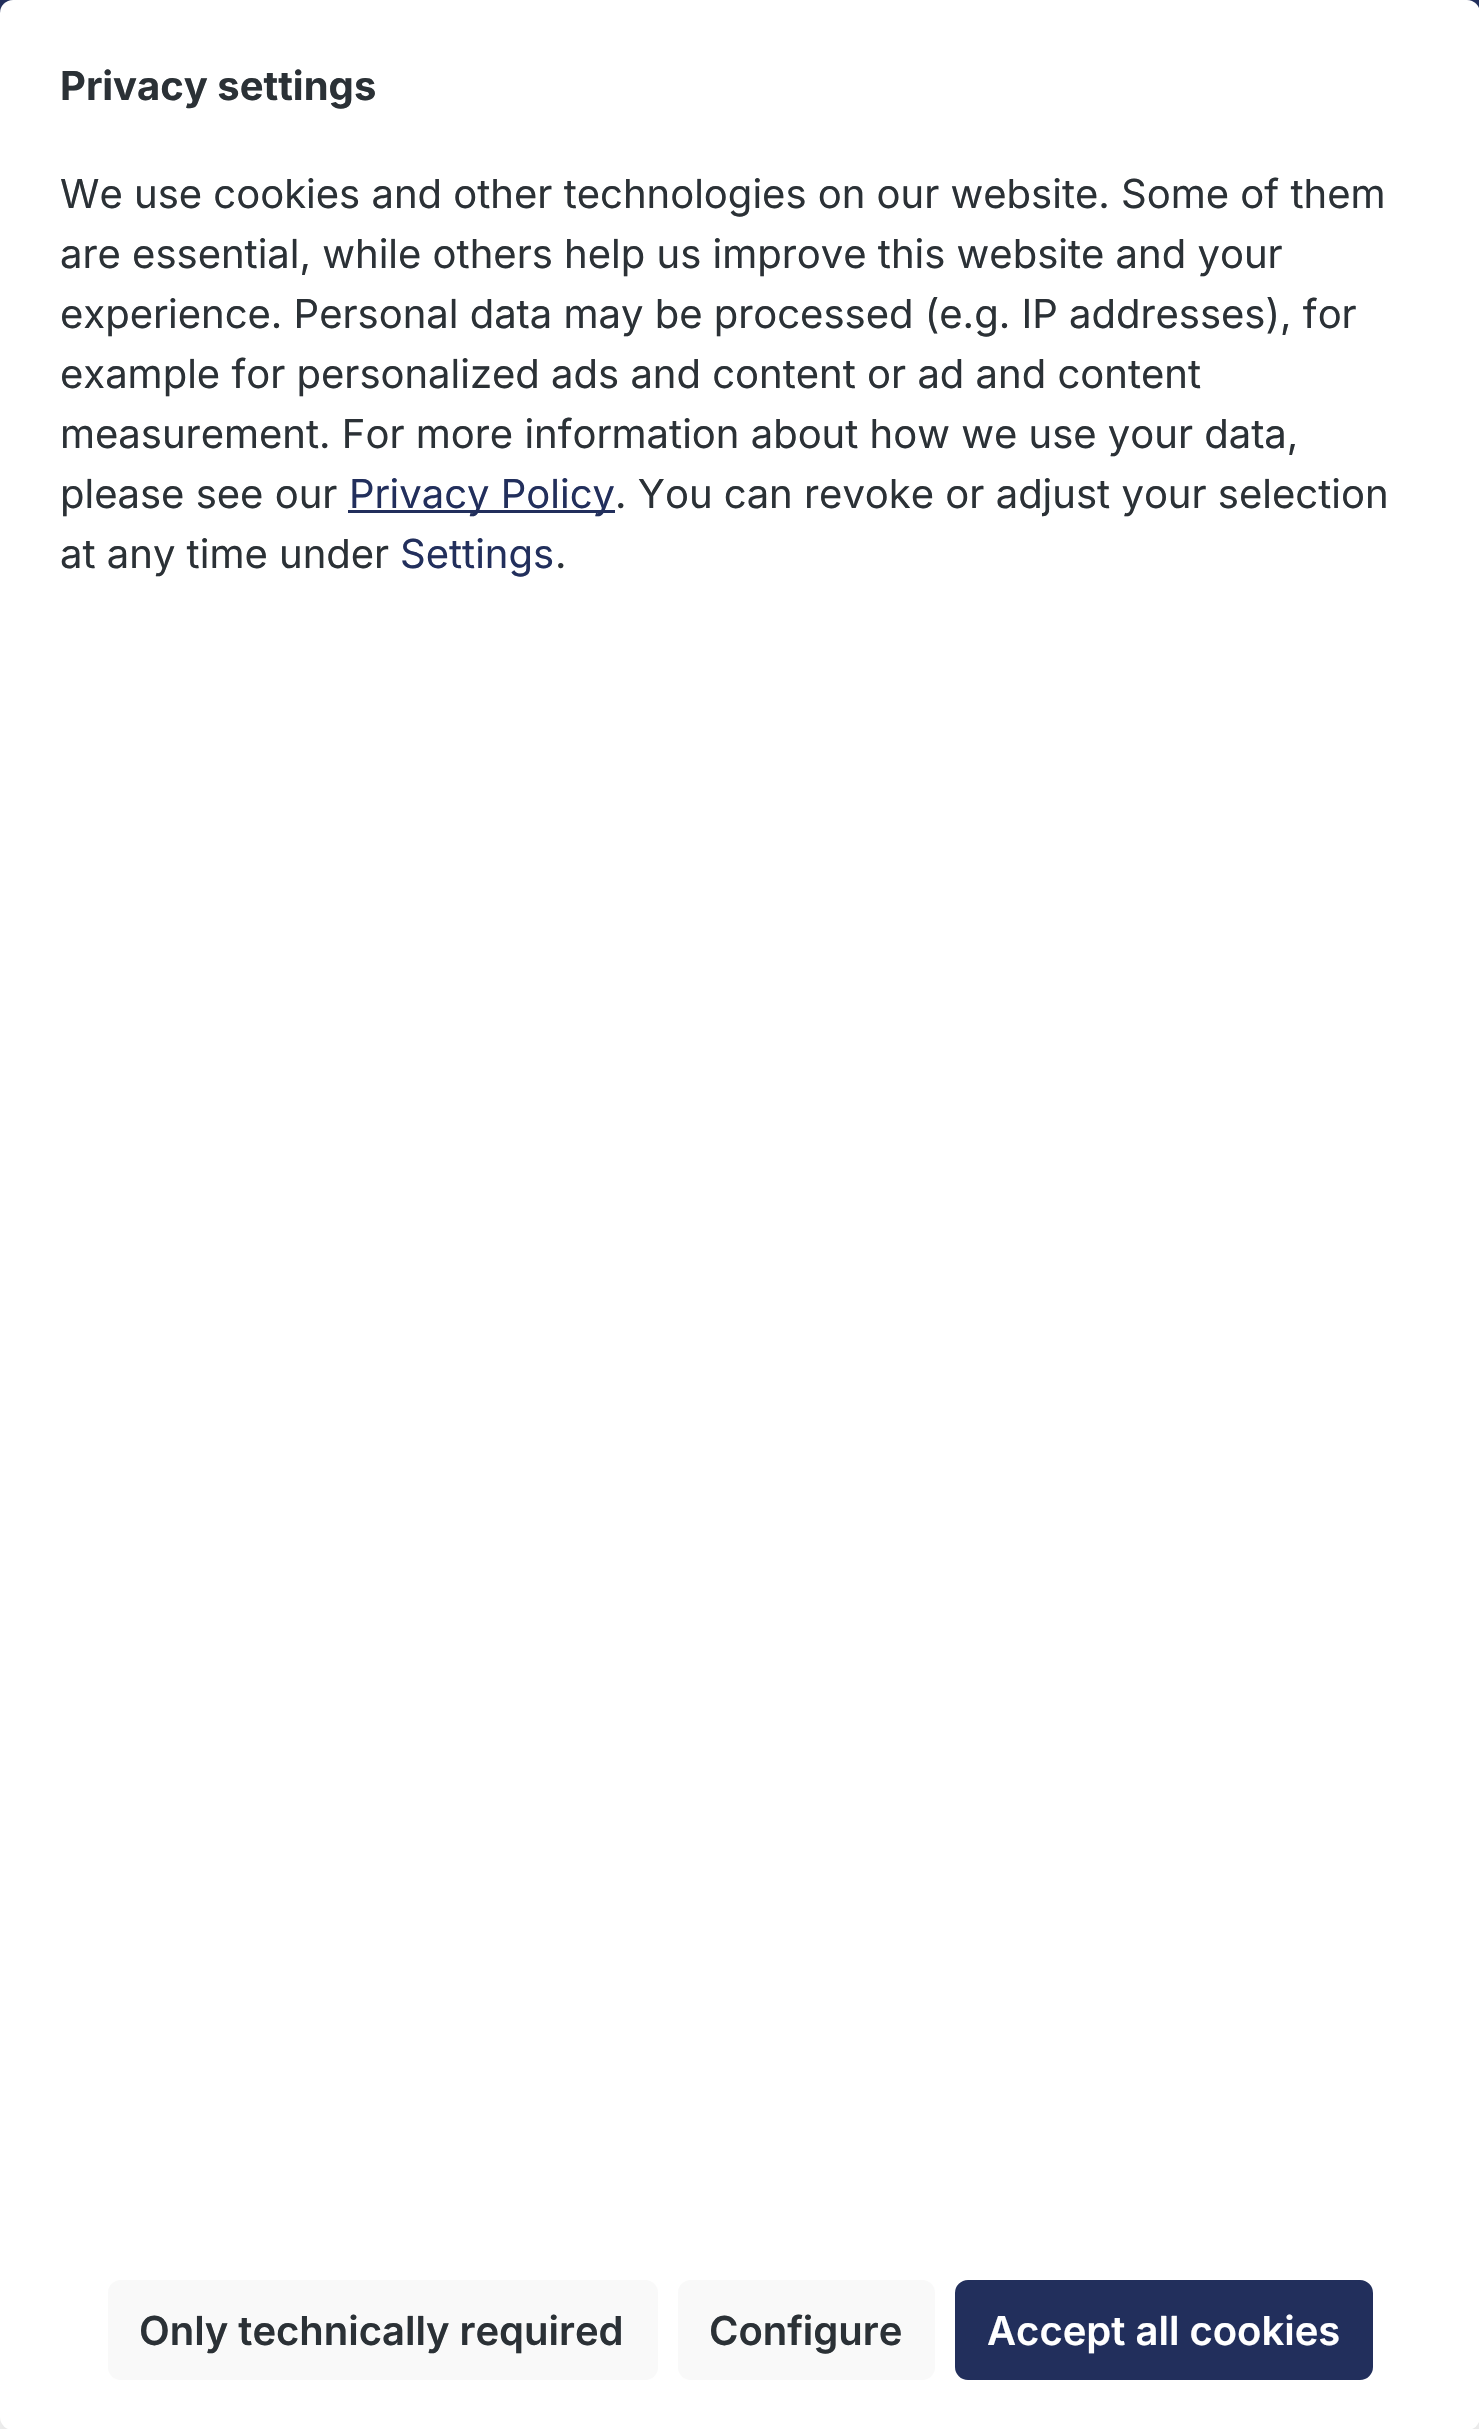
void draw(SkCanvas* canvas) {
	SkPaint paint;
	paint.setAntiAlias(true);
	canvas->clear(0xffffffff);
	paint.setColor(0xff222f5c);
	canvas->drawRect(SkRect::MakeXYWH(0, 0, 1479, 13), paint);
	paint.setColor(0x33000000);
	paint.setMaskFilter(SkMaskFilter::MakeBlur(kNormal_SkBlurStyle, 54));
	canvas->drawRect(SkRect::MakeXYWH(15, 123, 1450, 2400), paint);
	paint.setMaskFilter(nullptr);
	paint.setColor(0xffffffff);
	canvas->drawRoundRect(SkRect::MakeXYWH(0, 0, 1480, 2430), 13, 13, paint);
	SkFont f1(fontMgr->matchFamilyStyle("Inter", SkFontStyle::Bold()), 40);
	f1.setSubpixel(true);
	paint.setColor(0xff2b3136);
	canvas->drawString("Privacy settings", 60, 100, f1, paint);
	SkFont f2(fontMgr->matchFamilyStyle("Inter", SkFontStyle::Normal()), 40);
	f2.setSubpixel(true);
	canvas->drawString("We use cookies and other technologies on our website. Some of them", 60, 208, f2, paint);
	canvas->drawString("are essential, while others help us improve this website and your", 60, 268, f2, paint);
	canvas->drawString("experience. Personal data may be processed (e.g. IP addresses), for", 60, 328, f2, paint);
	canvas->drawString("example for personalized ads and content or ad and content", 60, 388, f2, paint);
	canvas->drawString("measurement. For more information about how we use your data,", 60, 448, f2, paint);
	canvas->drawString("please see our", 60, 508, f2, paint);
	paint.setColor(0xff222f5c);
	canvas->drawRect(SkRect::MakeXYWH(348, 510, 267, 3), paint);
	canvas->drawString("Privacy Policy", 349, 508, f2, paint);
	paint.setColor(0xff2b3136);
	canvas->drawString(". You can revoke or adjust your selection", 615, 508, f2, paint);
	canvas->drawString("at any time under", 60, 568, f2, paint);
	paint.setColor(0xff222f5c);
	canvas->drawString("Settings", 400, 568, f2, paint);
	paint.setColor(0xff2b3136);
	canvas->drawString(".", 555, 568, f2, paint);
	paint.setColor(0xfff9f9f9);
	canvas->drawRoundRect(SkRect::MakeXYWH(108, 2280, 550, 100), 13, 13, paint);
	SkFont f3(fontMgr->matchFamilyStyle("Inter", SkFontStyle(600, SkFontStyle::kNormal_Width, SkFontStyle::kUpright_Slant)), 40);
	f3.setSubpixel(true);
	paint.setColor(0xff2b3136);
	canvas->drawString("Only technically required", 139, 2345, f3, paint);
	paint.setColor(0xfff9f9f9);
	canvas->drawRoundRect(SkRect::MakeXYWH(678, 2280, 257, 100), 13, 13, paint);
	paint.setColor(0xff2b3136);
	canvas->drawString("Configure", 709, 2345, f3, paint);
	paint.setColor(0xff222f5c);
	canvas->drawRoundRect(SkRect::MakeXYWH(956.5, 2281.5, 415, 97), 11.5, 11.5, paint);
	paint.setStroke(true);
	paint.setStrokeWidth(3);
	canvas->drawRoundRect(SkRect::MakeXYWH(956.5, 2281.5, 415, 97), 11.5, 11.5, paint);
	paint.setStroke(false);
	paint.setColor(0xffffffff);
	canvas->drawString("Accept all cookies", 987, 2345, f3, paint);
}
